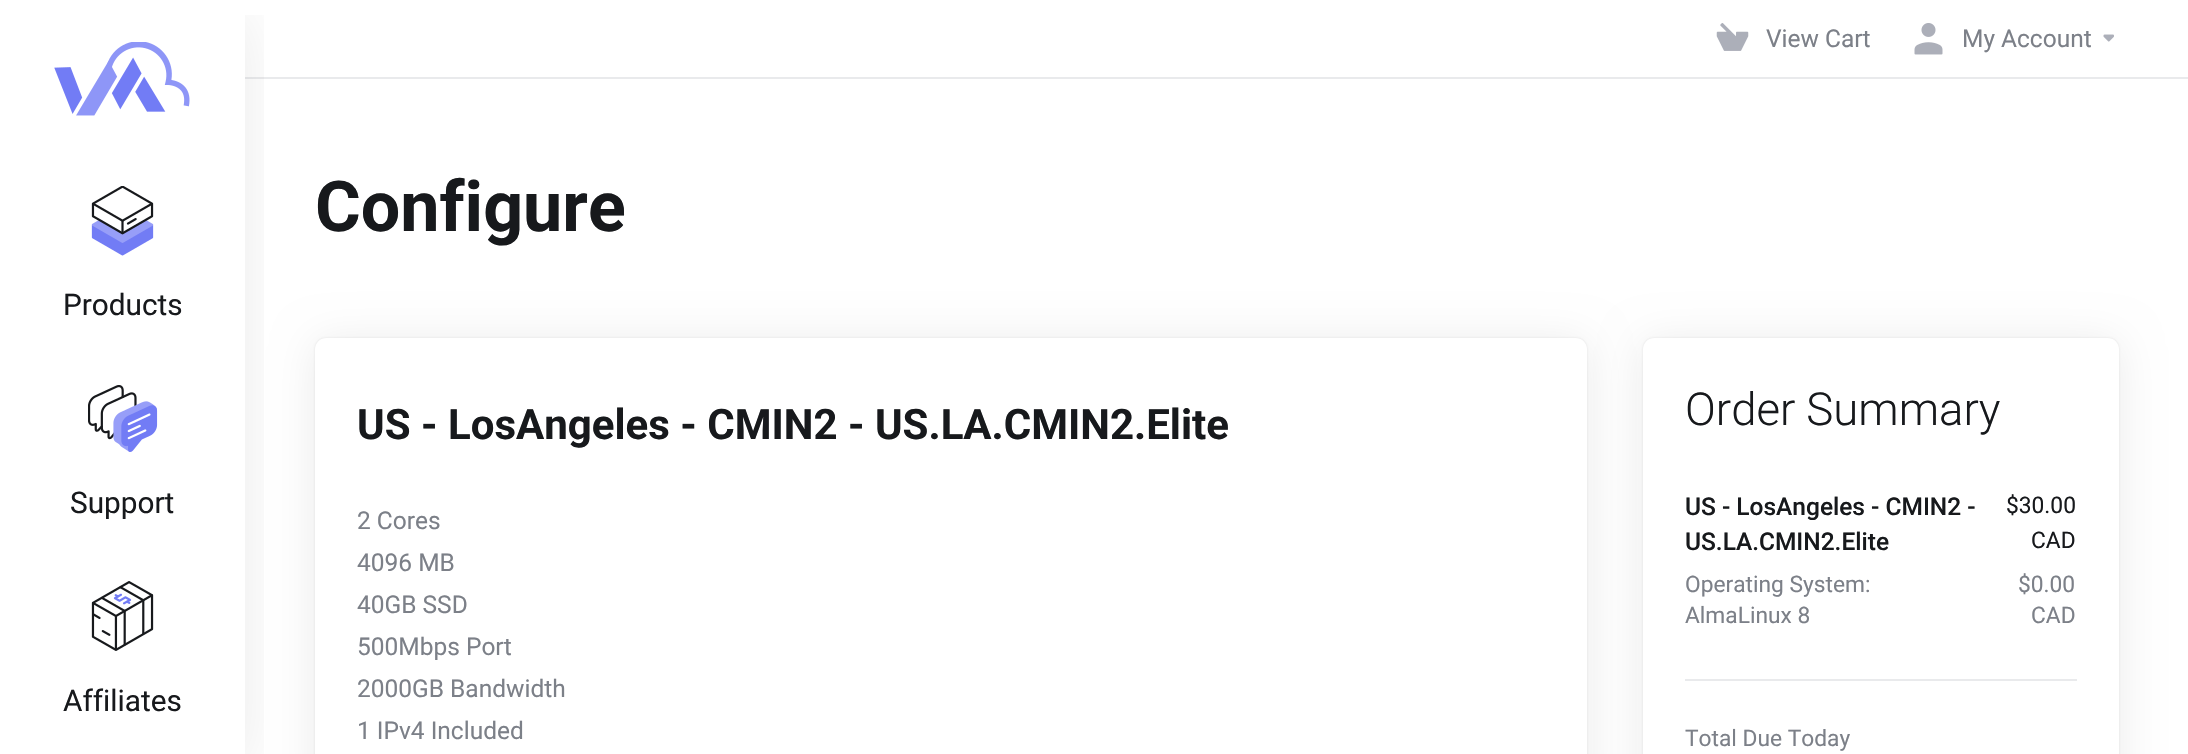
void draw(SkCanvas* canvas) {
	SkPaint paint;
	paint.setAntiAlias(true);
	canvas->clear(0xffffffff);
	paint.setColor(0xffe9eaec);
	canvas->drawRect(SkRect::MakeXYWH(245, 77, 1943, 2), paint);
	paint.setColor(0x14000000);
	paint.setMaskFilter(SkMaskFilter::MakeBlur(kNormal_SkBlurStyle, 21));
	canvas->drawRoundRect(SkRect::MakeXYWH(315, 341, 1272, 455), 11, 11, paint);
	paint.setMaskFilter(nullptr);
	paint.setColor(0x1a000000);
	paint.setMaskFilter(SkMaskFilter::MakeBlur(kNormal_SkBlurStyle, 1));
	canvas->drawRoundRect(SkRect::MakeXYWH(315, 338, 1272, 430), 11, 11, paint);
	paint.setMaskFilter(nullptr);
	paint.setColor(0xffffffff);
	canvas->drawRoundRect(SkRect::MakeXYWH(315, 338, 1272, 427), 11, 11, paint);
	canvas->save();
	canvas->clipRect(SkRect::MakeXYWH(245, 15, 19, 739));
	paint.setColor(0x14000000);
	paint.setMaskFilter(SkMaskFilter::MakeBlur(kNormal_SkBlurStyle, 28));
	canvas->drawRect(SkRect::MakeXYWH(0, 14, 245, 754), paint);
	paint.setMaskFilter(nullptr);
	canvas->restore();
	canvas->drawImageRect(SkImages::DeferredFromEncodedData(SkData::MakeFromFileName("img1.png")), SkRect::MakeXYWH(54, 42, 136, 74), SkSamplingOptions());
	canvas->drawImageRect(SkImages::DeferredFromEncodedData(SkData::MakeFromFileName("img2.png")), SkRect::MakeXYWH(91, 186, 63, 70), SkSamplingOptions());
	SkFont f1(fontMgr->matchFamilyStyle("Roboto", SkFontStyle::Normal()), 29.75);
	f1.setSubpixel(true);
	paint.setColor(0xff17191c);
	canvas->drawString("Products", 63, 315, f1, paint);
	canvas->drawImageRect(SkImages::DeferredFromEncodedData(SkData::MakeFromFileName("img3.png")), SkRect::MakeXYWH(88, 385, 70, 67), SkSamplingOptions());
	canvas->drawString("Support", 70, 513, f1, paint);
	canvas->drawImageRect(SkImages::DeferredFromEncodedData(SkData::MakeFromFileName("img4.png")), SkRect::MakeXYWH(91, 581, 63, 70), SkSamplingOptions());
	canvas->drawString("Affiliates", 63, 711, f1, paint);
	canvas->drawImageRect(SkImages::DeferredFromEncodedData(SkData::MakeFromFileName("img5.png")), SkRect::MakeXYWH(1716, 23, 33, 28), SkSamplingOptions());
	SkFont f2(fontMgr->matchFamilyStyle("Roboto", SkFontStyle::Normal()), 24.5);
	f2.setSubpixel(true);
	paint.setColor(0xff7c8088);
	canvas->drawString("View Cart", 1766, 47, f2, paint);
	canvas->drawImageRect(SkImages::DeferredFromEncodedData(SkData::MakeFromFileName("img6.png")), SkRect::MakeXYWH(1914, 23, 29, 32), SkSamplingOptions());
	canvas->drawString("My Account", 1962, 47, f2, paint);
	canvas->drawImageRect(SkImages::DeferredFromEncodedData(SkData::MakeFromFileName("img7.png")), SkRect::MakeXYWH(2103, 34, 11, 8), SkSamplingOptions());
	SkFont f3(fontMgr->matchFamilyStyle("Roboto", SkFontStyle::Bold()), 70);
	f3.setSubpixel(true);
	paint.setColor(0xff17191c);
	canvas->drawString("Configure", 315, 231, f3, paint);
	SkFont f4(fontMgr->matchFamilyStyle("Roboto", SkFontStyle::Bold()), 42);
	f4.setSubpixel(true);
	canvas->drawString("US - LosAngeles - CMIN2 - US.LA.CMIN2.Elite", 357, 439, f4, paint);
	paint.setColor(0xff7c8088);
	canvas->drawString("2 Cores", 357, 529, f2, paint);
	canvas->drawString("4096 MB", 357, 571, f2, paint);
	canvas->drawString("40GB SSD", 357, 613, f2, paint);
	canvas->drawString("500Mbps Port", 357, 655, f2, paint);
	canvas->drawString("2000GB Bandwidth", 357, 697, f2, paint);
	canvas->drawString("1 IPv4 Included", 357, 739, f2, paint);
	paint.setColor(0x14000000);
	paint.setMaskFilter(SkMaskFilter::MakeBlur(kNormal_SkBlurStyle, 21));
	canvas->drawRoundRect(SkRect::MakeXYWH(1643, 341, 476, 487), 11, 11, paint);
	paint.setMaskFilter(nullptr);
	paint.setColor(0x1a000000);
	paint.setMaskFilter(SkMaskFilter::MakeBlur(kNormal_SkBlurStyle, 1));
	canvas->drawRoundRect(SkRect::MakeXYWH(1643, 338, 476, 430), 11, 11, paint);
	paint.setMaskFilter(nullptr);
	paint.setColor(0xffffffff);
	canvas->drawRoundRect(SkRect::MakeXYWH(1643, 338, 476, 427), 11, 11, paint);
	SkFont f5(fontMgr->matchFamilyStyle("Roboto", SkFontStyle(300, SkFontStyle::kNormal_Width, SkFontStyle::kUpright_Slant)), 45.5);
	f5.setSubpixel(true);
	paint.setColor(0xff17191c);
	canvas->drawString("Order Summary", 1685, 425, f5, paint);
	SkFont f6(fontMgr->matchFamilyStyle("Roboto", SkFontStyle(500, SkFontStyle::kNormal_Width, SkFontStyle::kUpright_Slant)), 24.5);
	f6.setSubpixel(true);
	canvas->drawString("US - LosAngeles - CMIN2 -", 1685, 515, f6, paint);
	canvas->drawString("US.LA.CMIN2.Elite", 1685, 550, f6, paint);
	SkFont f7(fontMgr->matchFamilyStyle("Roboto", SkFontStyle::Normal()), 22.75);
	f7.setSubpixel(true);
	canvas->drawString("$30.00", 2006, 513, f7, paint);
	canvas->drawString("CAD", 2031, 548, f7, paint);
	paint.setColor(0xff7c8088);
	canvas->drawString("Operating System:", 1685, 592, f7, paint);
	canvas->drawString("AlmaLinux 8", 1685, 623, f7, paint);
	canvas->drawString("$0.00", 2018, 592, f7, paint);
	canvas->drawString("CAD", 2031, 623, f7, paint);
	paint.setColor(0xffe9eaec);
	canvas->drawRect(SkRect::MakeXYWH(1685, 679, 392, 2), paint);
	paint.setColor(0xff7c8088);
	canvas->drawString("Total Due Today", 1685, 746, f7, paint);
}
